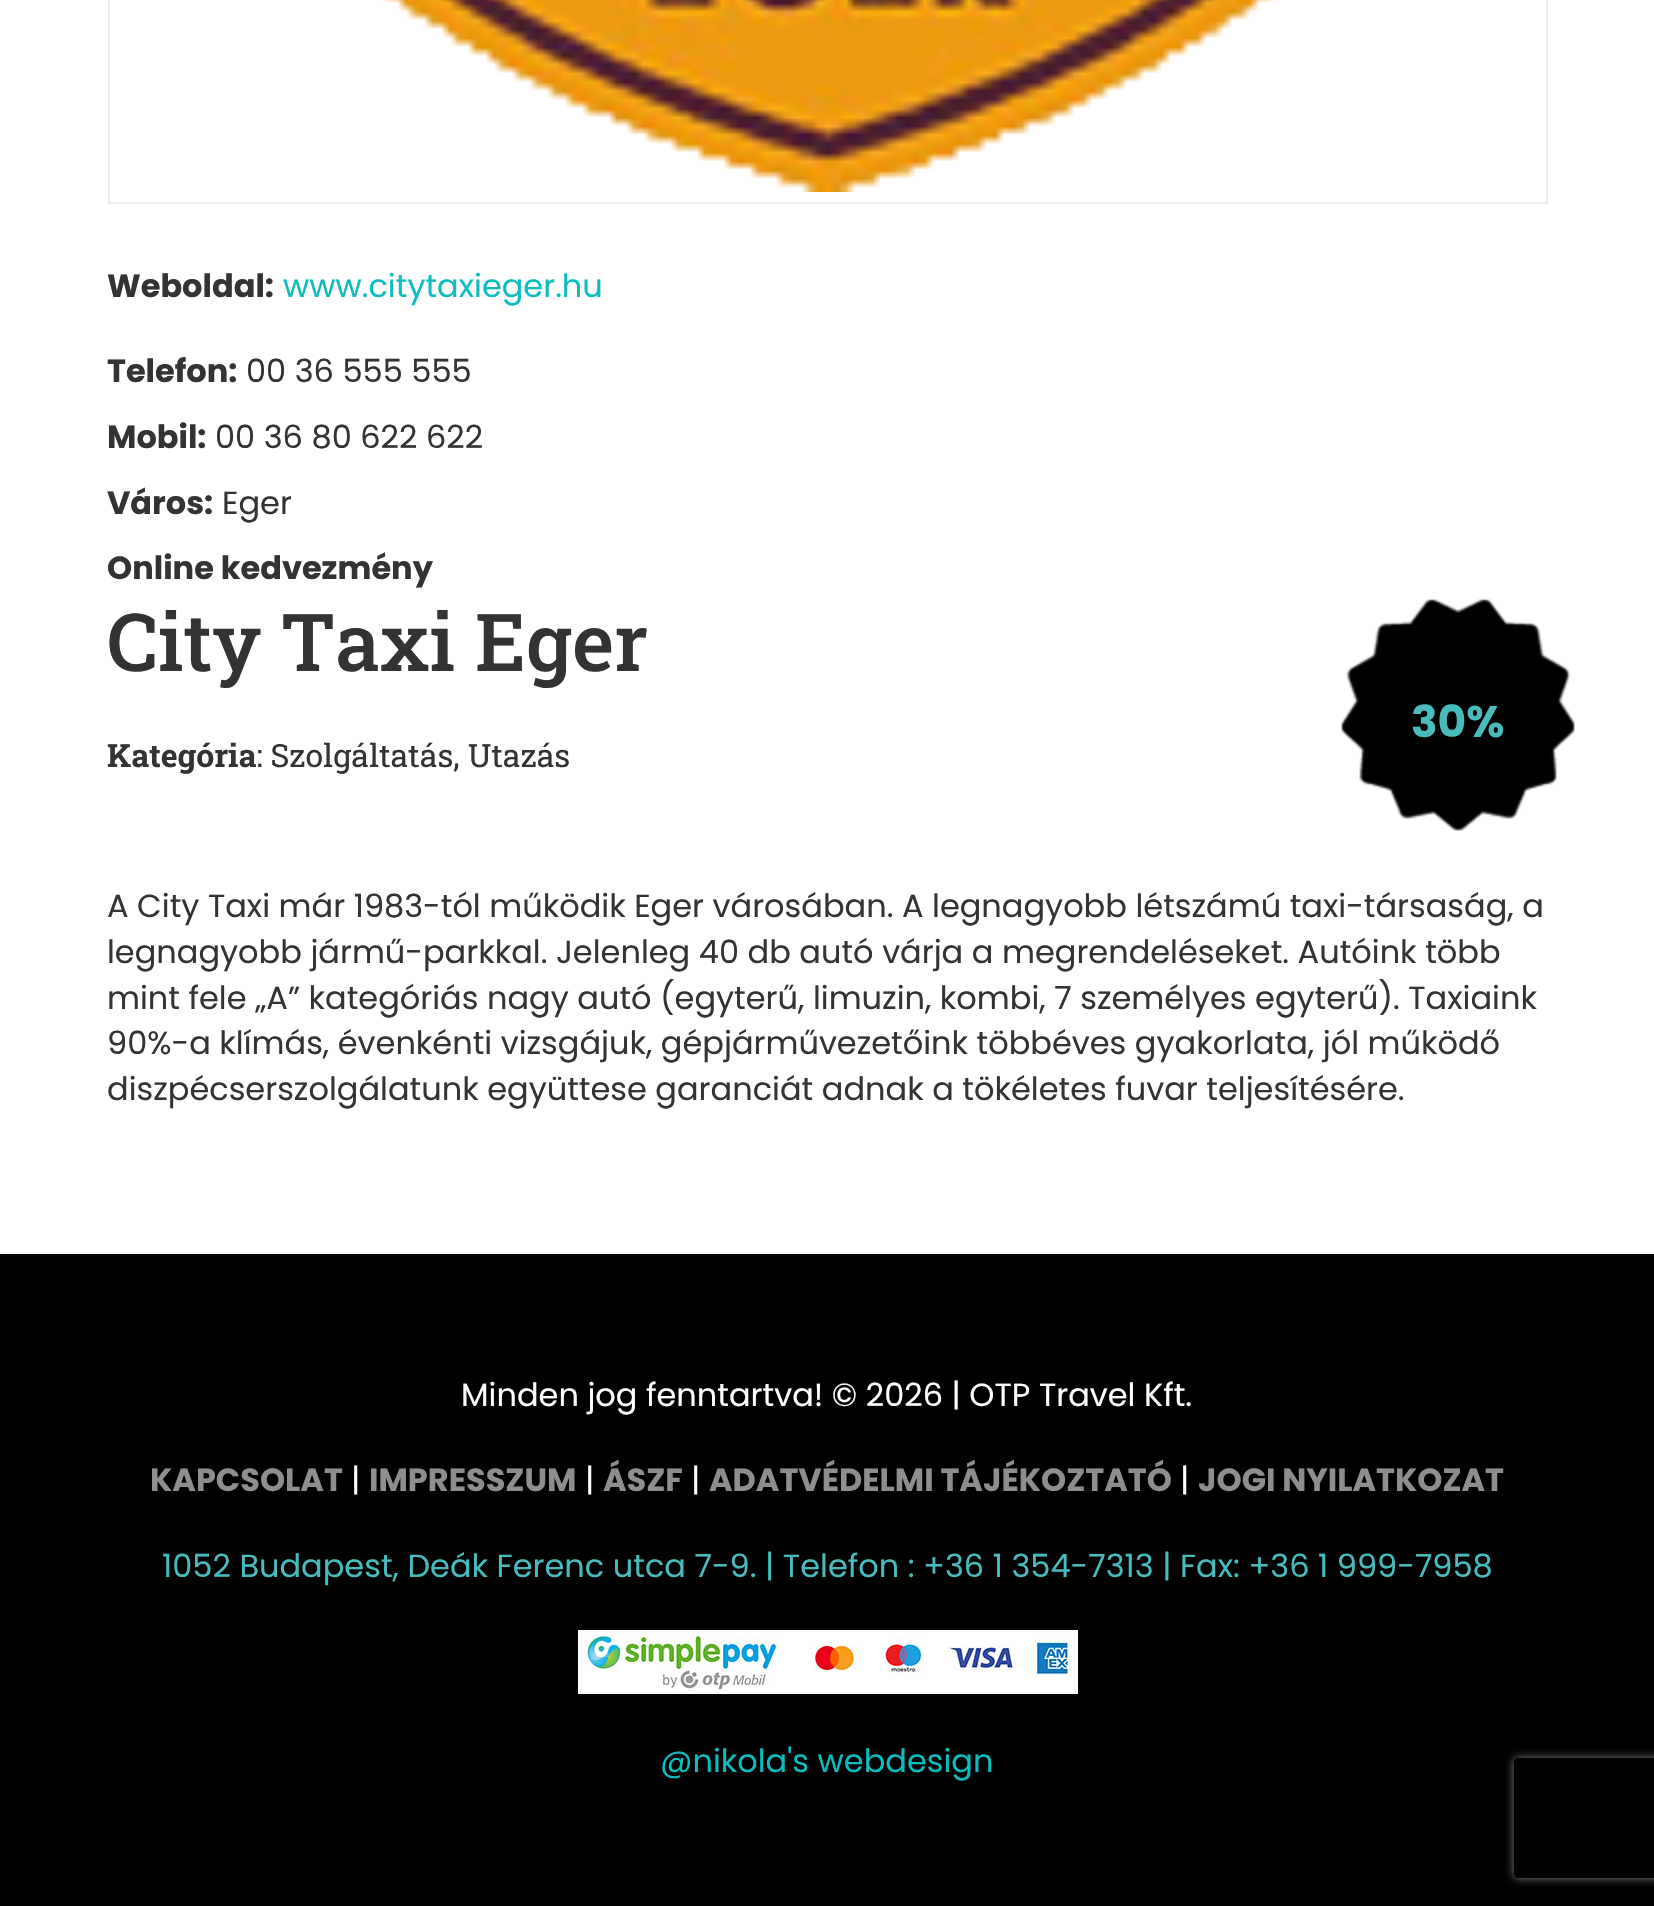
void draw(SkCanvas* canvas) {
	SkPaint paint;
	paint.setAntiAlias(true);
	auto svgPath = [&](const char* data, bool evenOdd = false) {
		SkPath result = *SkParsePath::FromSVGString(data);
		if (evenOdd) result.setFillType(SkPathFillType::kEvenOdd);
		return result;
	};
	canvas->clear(0xffffffff);
	paint.setStroke(true);
	paint.setStrokeWidth(2);
	paint.setColor(0xffededed);
	canvas->drawRect(SkRect::MakeXYWH(109, -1, 1438, 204), paint);
	canvas->drawImageRect(SkImages::DeferredFromEncodedData(SkData::MakeFromFileName("img1.png")), SkRect::MakeXYWH(381, 0, 895, 192), SkSamplingOptions());
	SkFont f1(fontMgr->matchFamilyStyle("Poppins", SkFontStyle::Bold()), 32);
	f1.setSubpixel(true);
	paint.setStroke(false);
	paint.setColor(0xff333333);
	canvas->drawString("Weboldal:", 107, 297, f1, paint);
	SkFont f2(fontMgr->matchFamilyStyle("Poppins", SkFontStyle::Normal()), 32);
	f2.setSubpixel(true);
	paint.setColor(0xff0bbdbd);
	canvas->drawString("www.citytaxieger.hu", 283, 297, f2, paint);
	paint.setColor(0xff333333);
	canvas->drawString("Telefon:", 107, 382, f1, paint);
	canvas->drawString("00 36 555 555", 246, 382, f2, paint);
	canvas->drawString("Mobil:", 107, 448, f1, paint);
	canvas->drawString("00 36 80 622 622", 215, 448, f2, paint);
	canvas->drawString("Város:", 107, 514, f1, paint);
	canvas->drawString("Eger", 222, 514, f2, paint);
	canvas->drawString("Online kedvezmény", 107, 579, f1, paint);
	SkFont f3(fontMgr->matchFamilyStyle("Roboto Slab", SkFontStyle(500, SkFontStyle::kNormal_Width, SkFontStyle::kUpright_Slant)), 80);
	f3.setSubpixel(true);
	canvas->drawString("City Taxi Eger", 107, 671, f3, paint);
	SkFont f4(fontMgr->matchFamilyStyle("Roboto Slab", SkFontStyle::Bold()), 32);
	f4.setSubpixel(true);
	canvas->drawString("Kategória", 107, 767, f4, paint);
	SkFont f5(fontMgr->matchFamilyStyle("Roboto Slab", SkFontStyle::Normal()), 32);
	f5.setSubpixel(true);
	canvas->drawString(": Szolgáltatás, Utazás", 256, 767, f5, paint);
	canvas->drawImageRect(SkImages::DeferredFromEncodedData(SkData::MakeFromFileName("img2.png")), SkRect::MakeXYWH(1341, 599, 234, 232), SkSamplingOptions());
	SkFont f6(fontMgr->matchFamilyStyle("Poppins", SkFontStyle::Bold()), 44);
	f6.setSubpixel(true);
	paint.setColor(0xff48bcbd);
	canvas->drawString("30%", 1411, 737, f6, paint);
	paint.setColor(0xff333333);
	canvas->drawString("A City Taxi már 1983-tól működik Eger városában. A legnagyobb létszámú taxi-társaság, a", 107, 917, f2, paint);
	canvas->drawString("legnagyobb jármű-parkkal. Jelenleg 40 db autó várja a megrendeléseket. Autóink több", 107, 963, f2, paint);
	canvas->drawString("mint fele „A” kategóriás nagy autó (egyterű, limuzin, kombi, 7 személyes egyterű). Taxiaink", 107, 1009, f2, paint);
	canvas->drawString("90%-a klímás, évenkénti vizsgájuk, gépjárművezetőink többéves gyakorlata, jól működő", 107, 1054, f2, paint);
	canvas->drawString("diszpécserszolgálatunk együttese garanciát adnak a tökéletes fuvar teljesítésére.", 107, 1100, f2, paint);
	paint.setColor(0xff000000);
	canvas->drawRect(SkRect::MakeXYWH(0, 1254, 1654, 652), paint);
	paint.setColor(0xffffffff);
	canvas->drawString("Minden jog fenntartva! © 2026 | OTP Travel Kft.", 461, 1406, f2, paint);
	paint.setColor(0xff8f8e8e);
	canvas->drawString("KAPCSOLAT", 150, 1491, f1, paint);
	paint.setColor(0xffffffff);
	canvas->drawString("|", 351, 1491, f2, paint);
	paint.setColor(0xff8f8e8e);
	canvas->drawString("IMPRESSZUM", 369, 1491, f1, paint);
	paint.setColor(0xffffffff);
	canvas->drawString("|", 585, 1491, f2, paint);
	paint.setColor(0xff8f8e8e);
	canvas->drawString("ÁSZF", 603, 1491, f1, paint);
	paint.setColor(0xffffffff);
	canvas->drawString("|", 691, 1491, f2, paint);
	paint.setColor(0xff8f8e8e);
	canvas->drawString("ADATVÉDELMI TÁJÉKOZTATÓ", 709, 1491, f1, paint);
	paint.setColor(0xffffffff);
	canvas->drawString("|", 1180, 1491, f2, paint);
	paint.setColor(0xff8f8e8e);
	canvas->drawString("JOGI NYILATKOZAT", 1198, 1491, f1, paint);
	paint.setColor(0xff48bcbd);
	canvas->drawString("1052 Budapest, Deák Ferenc utca 7-9. | Telefon : +36 1 354-7313 | Fax: +36 1 999-7958", 162, 1577, f2, paint);
	canvas->drawImageRect(SkImages::DeferredFromEncodedData(SkData::MakeFromFileName("img3.png")), SkRect::MakeXYWH(578, 1630, 500, 64), SkSamplingOptions());
	paint.setColor(0xff0bbdbd);
	canvas->drawString("@nikola's webdesign", 660, 1772, f2, paint);
	canvas->save();
	canvas->clipPath(svgPath("M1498 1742H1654V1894H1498ZM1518 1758H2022C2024 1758 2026 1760 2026 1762V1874C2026 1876 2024 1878 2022 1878H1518C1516 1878 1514 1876 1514 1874V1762C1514 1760 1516 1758 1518 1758Z", true), true);
	paint.setColor(0xff808080);
	paint.setMaskFilter(SkMaskFilter::MakeBlur(kNormal_SkBlurStyle, 5));
	canvas->drawRoundRect(SkRect::MakeXYWH(1514, 1758, 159, 120), 4, 4, paint);
	paint.setMaskFilter(nullptr);
	canvas->restore();
}
